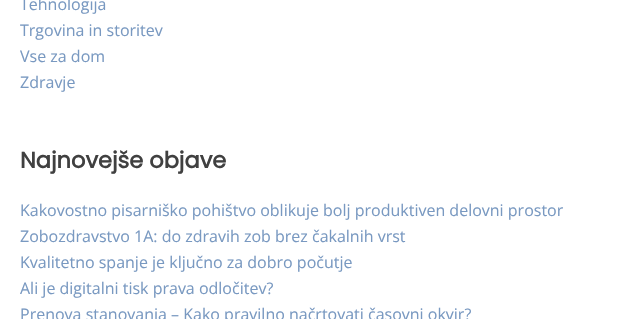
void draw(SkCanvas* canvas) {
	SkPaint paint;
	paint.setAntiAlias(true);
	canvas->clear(0xffffffff);
	SkFont f1(fontMgr->matchFamilyStyle("Open Sans", SkFontStyle::Normal()), 16);
	f1.setSubpixel(true);
	paint.setColor(0xff7999c1);
	canvas->drawString("Tehnologija", 20, 10, f1, paint);
	canvas->drawString("Trgovina in storitev", 20, 36, f1, paint);
	canvas->drawString("Vse za dom", 20, 62, f1, paint);
	canvas->drawString("Zdravje", 20, 88, f1, paint);
	SkFont f2(fontMgr->matchFamilyStyle("Poppins", SkFontStyle::Bold()), 22.5);
	f2.setSubpixel(true);
	paint.setColor(0xff404040);
	canvas->drawString("Najnovejše objave", 20, 168, f2, paint);
	paint.setColor(0xff7999c1);
	canvas->drawString("Kakovostno pisarniško pohištvo oblikuje bolj produktiven delovni prostor", 20, 216, f1, paint);
	canvas->drawString("Zobozdravstvo 1A: do zdravih zob brez čakalnih vrst", 20, 242, f1, paint);
	canvas->drawString("Kvalitetno spanje je ključno za dobro počutje", 20, 268, f1, paint);
	canvas->drawString("Ali je digitalni tisk prava odločitev?", 20, 294, f1, paint);
	canvas->drawString("Prenova stanovanja – Kako pravilno načrtovati časovni okvir?", 20, 320, f1, paint);
}
